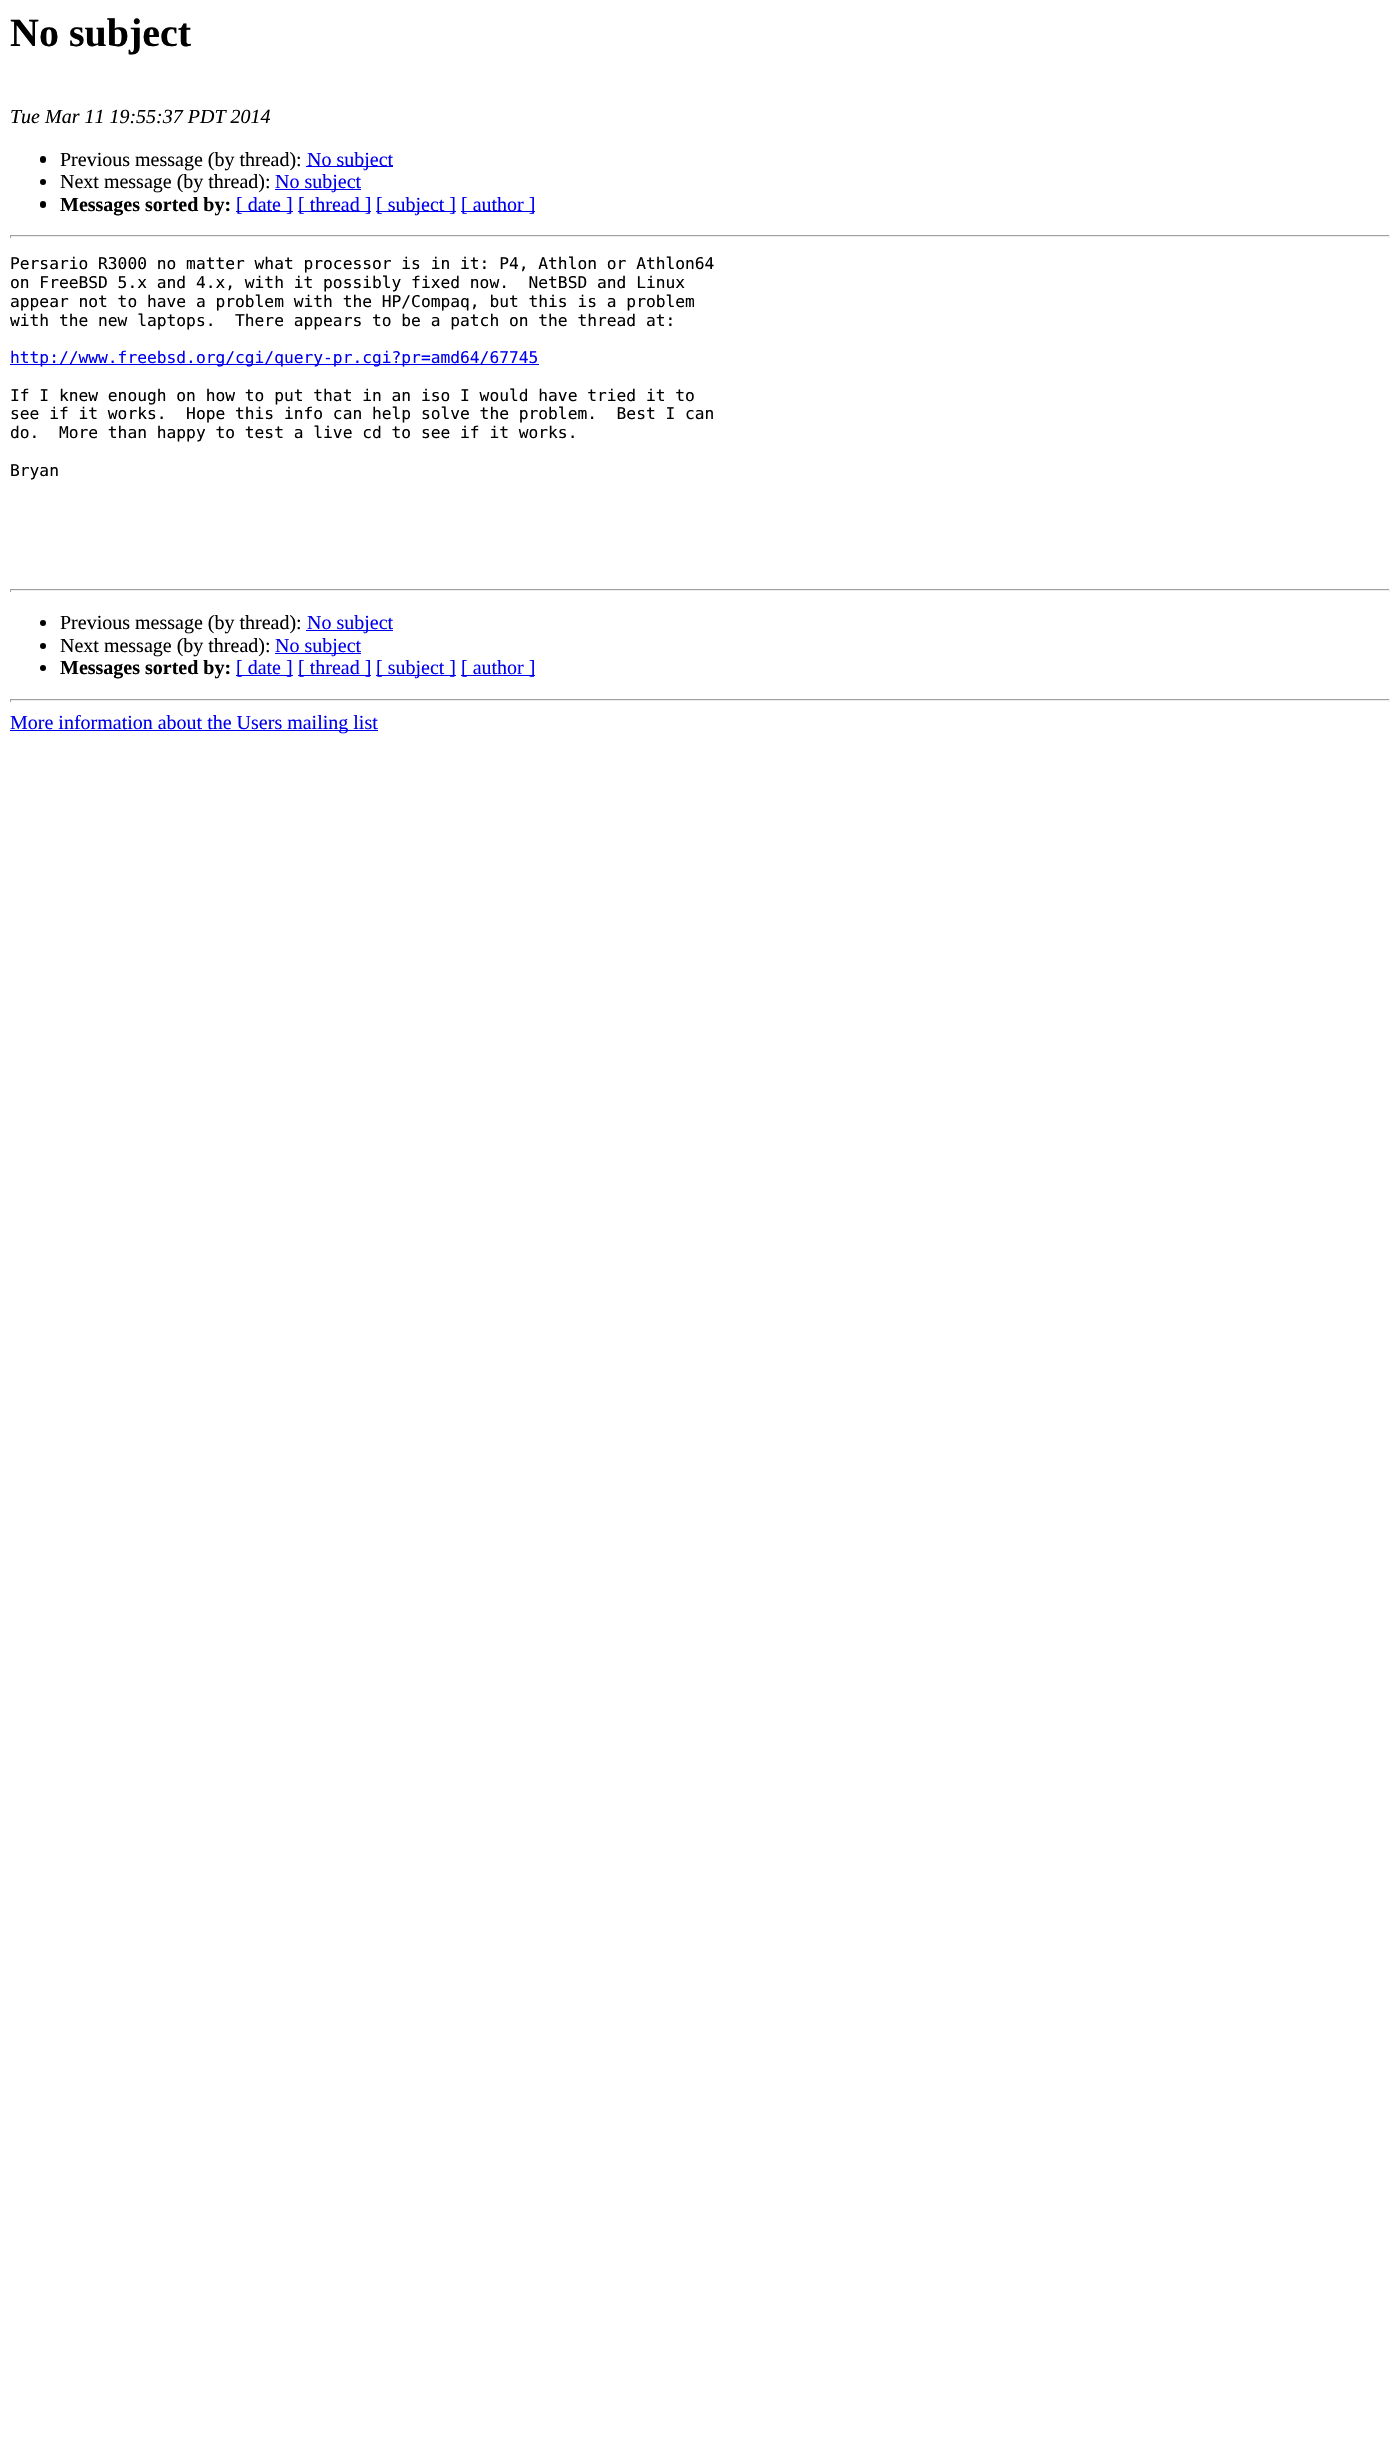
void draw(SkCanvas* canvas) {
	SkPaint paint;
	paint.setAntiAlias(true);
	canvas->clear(0xffffffff);
	SkFont f1(fontMgr->matchFamilyStyle("Liberation Serif", SkFontStyle::Bold()), 40);
	f1.setSubpixel(true);
	paint.setColor(0xff000000);
	canvas->drawString("No subject", 10, 46, f1, paint);
	SkFont f2(fontMgr->matchFamilyStyle("Liberation Serif", SkFontStyle::Italic()), 20);
	f2.setSubpixel(true);
	canvas->drawString("Tue Mar 11 19:55:37 PDT 2014", 10, 123, f2, paint);
	canvas->drawRoundRect(SkRect::MakeXYWH(40, 156, 6, 7), 3, 3, paint);
	SkFont f3(fontMgr->matchFamilyStyle("Liberation Serif", SkFontStyle::Normal()), 20);
	f3.setSubpixel(true);
	canvas->drawString("Previous message (by thread):", 60, 166, f3, paint);
	paint.setColor(0xff0000ee);
	canvas->drawRect(SkRect::MakeXYWH(306, 166, 87, 1), paint);
	canvas->drawString("No subject", 307, 166, f3, paint);
	paint.setColor(0xff000000);
	canvas->drawCircle(43, 182, 3, paint);
	canvas->drawString("Next message (by thread):", 60, 188, f3, paint);
	paint.setColor(0xff0000ee);
	canvas->drawRect(SkRect::MakeXYWH(275, 189, 86, 1), paint);
	canvas->drawString("No subject", 275, 188, f3, paint);
	paint.setColor(0xff000000);
	canvas->drawRoundRect(SkRect::MakeXYWH(40, 201, 6, 7), 3, 3, paint);
	SkFont f4(fontMgr->matchFamilyStyle("Liberation Serif", SkFontStyle::Bold()), 20);
	f4.setSubpixel(true);
	canvas->drawString("Messages sorted by:", 60, 211, f4, paint);
	paint.setColor(0xff0000ee);
	canvas->drawRect(SkRect::MakeXYWH(236, 211, 57, 1), paint);
	canvas->drawString("[ date ]", 236, 211, f3, paint);
	canvas->drawRect(SkRect::MakeXYWH(298, 211, 73, 1), paint);
	canvas->drawString("[ thread ]", 298, 211, f3, paint);
	canvas->drawRect(SkRect::MakeXYWH(376, 211, 80, 1), paint);
	canvas->drawString("[ subject ]", 376, 211, f3, paint);
	canvas->drawRect(SkRect::MakeXYWH(461, 211, 74, 1), paint);
	canvas->drawString("[ author ]", 461, 211, f3, paint);
	paint.setColor(0xff9f9f9f);
	canvas->drawRect(SkRect::MakeXYWH(10, 235, 1380, 1), paint);
	paint.setColor(0xffeeeeee);
	canvas->drawRect(SkRect::MakeXYWH(1389, 235, 1, 3), paint);
	canvas->drawRect(SkRect::MakeXYWH(10, 236, 1380, 1), paint);
	paint.setColor(0xff9f9f9f);
	canvas->drawRect(SkRect::MakeXYWH(10, 235, 1, 3), paint);
	SkFont f5(fontMgr->matchFamilyStyle("DejaVu Sans Mono", SkFontStyle::Normal()), 16.25);
	f5.setSubpixel(true);
	paint.setColor(0xff000000);
	canvas->drawString("Persario R3000 no matter what processor is in it: P4, Athlon or Athlon64", 10, 269, f5, paint);
	canvas->drawString("on FreeBSD 5.x and 4.x, with it possibly fixed now.  NetBSD and Linux", 10, 288, f5, paint);
	canvas->drawString("appear not to have a problem with the HP/Compaq, but this is a problem", 10, 307, f5, paint);
	canvas->drawString("with the new laptops.  There appears to be a patch on the thread at:", 10, 326, f5, paint);
	paint.setColor(0xff0000ee);
	canvas->drawRect(SkRect::MakeXYWH(10, 364, 529, 1), paint);
	canvas->drawString("http://www.freebsd.org/cgi/query-pr.cgi?pr=amd64/67745", 10, 363, f5, paint);
	paint.setColor(0xff000000);
	canvas->drawString("If I knew enough on how to put that in an iso I would have tried it to", 10, 401, f5, paint);
	canvas->drawString("see if it works.  Hope this info can help solve the problem.  Best I can", 10, 419, f5, paint);
	canvas->drawString("do.  More than happy to test a live cd to see if it works.", 10, 438, f5, paint);
	canvas->drawString("Bryan", 10, 476, f5, paint);
	paint.setColor(0xff9f9f9f);
	canvas->drawRect(SkRect::MakeXYWH(10, 589, 1380, 1), paint);
	paint.setColor(0xffeeeeee);
	canvas->drawRect(SkRect::MakeXYWH(1389, 589, 1, 3), paint);
	canvas->drawRect(SkRect::MakeXYWH(10, 590, 1380, 1), paint);
	paint.setColor(0xff9f9f9f);
	canvas->drawRect(SkRect::MakeXYWH(10, 589, 1, 3), paint);
	paint.setColor(0xff000000);
	canvas->drawCircle(43, 623, 3, paint);
	canvas->drawString("Previous message (by thread):", 60, 629, f3, paint);
	paint.setColor(0xff0000ee);
	canvas->drawRect(SkRect::MakeXYWH(306, 630, 87, 1), paint);
	canvas->drawString("No subject", 307, 629, f3, paint);
	paint.setColor(0xff000000);
	canvas->drawCircle(43, 646, 3, paint);
	canvas->drawString("Next message (by thread):", 60, 652, f3, paint);
	paint.setColor(0xff0000ee);
	canvas->drawRect(SkRect::MakeXYWH(275, 653, 86, 1), paint);
	canvas->drawString("No subject", 275, 652, f3, paint);
	paint.setColor(0xff000000);
	canvas->drawCircle(43, 668, 3, paint);
	canvas->drawString("Messages sorted by:", 60, 674, f4, paint);
	paint.setColor(0xff0000ee);
	canvas->drawRect(SkRect::MakeXYWH(236, 675, 57, 1), paint);
	canvas->drawString("[ date ]", 236, 674, f3, paint);
	canvas->drawRect(SkRect::MakeXYWH(298, 675, 73, 1), paint);
	canvas->drawString("[ thread ]", 298, 674, f3, paint);
	canvas->drawRect(SkRect::MakeXYWH(376, 675, 80, 1), paint);
	canvas->drawString("[ subject ]", 376, 674, f3, paint);
	canvas->drawRect(SkRect::MakeXYWH(461, 675, 74, 1), paint);
	canvas->drawString("[ author ]", 461, 674, f3, paint);
	paint.setColor(0xff9f9f9f);
	canvas->drawRect(SkRect::MakeXYWH(10, 699, 1380, 1), paint);
	paint.setColor(0xffeeeeee);
	canvas->drawRect(SkRect::MakeXYWH(1389, 699, 1, 3), paint);
	canvas->drawRect(SkRect::MakeXYWH(10, 700, 1380, 1), paint);
	paint.setColor(0xff9f9f9f);
	canvas->drawRect(SkRect::MakeXYWH(10, 699, 1, 3), paint);
	paint.setColor(0xff0000ee);
	canvas->drawRect(SkRect::MakeXYWH(10, 730, 368, 1), paint);
	canvas->drawString("More information about the Users mailing list", 10, 729, f3, paint);
}
